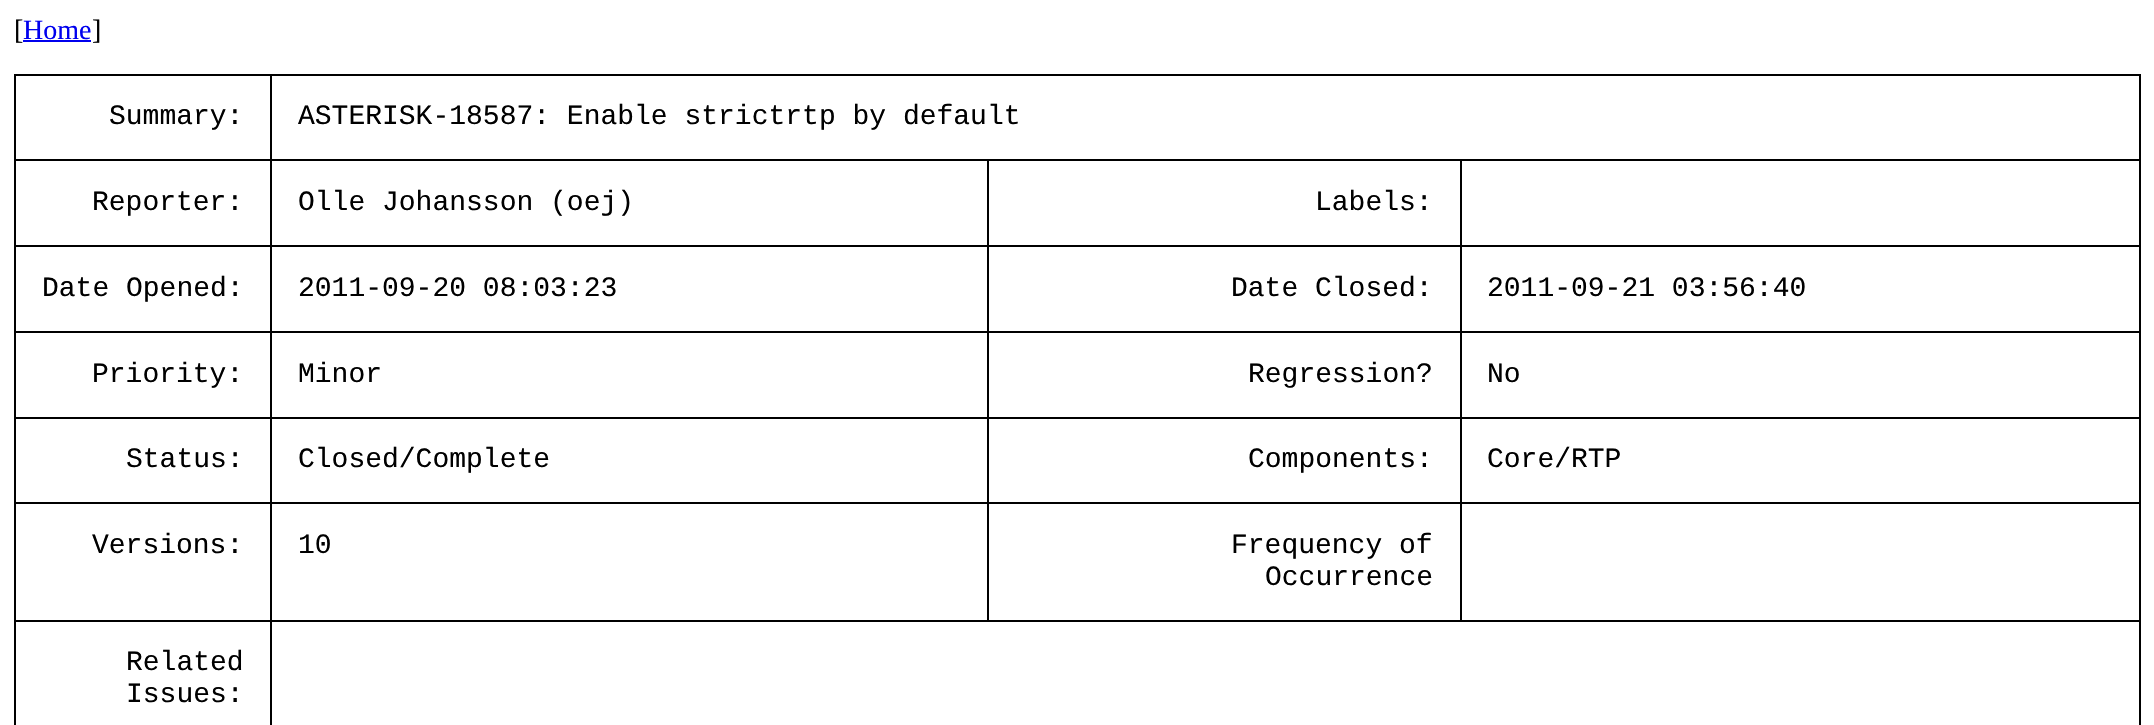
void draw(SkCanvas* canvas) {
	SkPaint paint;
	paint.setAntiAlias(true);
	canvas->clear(0xffffffff);
	SkFont f1(fontMgr->matchFamilyStyle("Liberation Serif", SkFontStyle::Normal()), 28);
	f1.setSubpixel(true);
	paint.setColor(0xff000000);
	canvas->drawString("[", 14, 39, f1, paint);
	paint.setColor(0xff0000ee);
	canvas->drawString("Home", 23, 39, f1, paint);
	canvas->drawRect(SkRect::MakeXYWH(23, 40, 68, 2), paint);
	paint.setColor(0xff000000);
	canvas->drawString("]", 92, 39, f1, paint);
	canvas->drawRect(SkRect::MakeXYWH(270, 74, 1870, 2), paint);
	canvas->drawRect(SkRect::MakeXYWH(1460, 159, 680, 2), paint);
	canvas->drawRect(SkRect::MakeXYWH(1460, 245, 680, 2), paint);
	canvas->drawRect(SkRect::MakeXYWH(1460, 331, 680, 2), paint);
	canvas->drawRect(SkRect::MakeXYWH(1460, 417, 680, 2), paint);
	canvas->drawRect(SkRect::MakeXYWH(1460, 502, 680, 2), paint);
	canvas->drawRect(SkRect::MakeXYWH(270, 620, 1870, 2), paint);
	canvas->drawRect(SkRect::MakeXYWH(1460, 502, 2, 119), paint);
	canvas->drawRect(SkRect::MakeXYWH(987, 502, 474, 2), paint);
	canvas->drawRect(SkRect::MakeXYWH(1460, 417, 2, 87), paint);
	canvas->drawRect(SkRect::MakeXYWH(987, 417, 474, 2), paint);
	canvas->drawRect(SkRect::MakeXYWH(1460, 331, 2, 87), paint);
	canvas->drawRect(SkRect::MakeXYWH(987, 331, 474, 2), paint);
	canvas->drawRect(SkRect::MakeXYWH(1460, 245, 2, 88), paint);
	canvas->drawRect(SkRect::MakeXYWH(987, 245, 474, 2), paint);
	canvas->drawRect(SkRect::MakeXYWH(1460, 159, 2, 88), paint);
	canvas->drawRect(SkRect::MakeXYWH(987, 159, 474, 2), paint);
	canvas->drawRect(SkRect::MakeXYWH(987, 502, 2, 119), paint);
	canvas->drawRect(SkRect::MakeXYWH(270, 502, 719, 2), paint);
	canvas->drawRect(SkRect::MakeXYWH(987, 417, 2, 87), paint);
	canvas->drawRect(SkRect::MakeXYWH(270, 417, 719, 2), paint);
	canvas->drawRect(SkRect::MakeXYWH(987, 331, 2, 87), paint);
	canvas->drawRect(SkRect::MakeXYWH(270, 331, 719, 2), paint);
	canvas->drawRect(SkRect::MakeXYWH(987, 245, 2, 88), paint);
	canvas->drawRect(SkRect::MakeXYWH(270, 245, 719, 2), paint);
	canvas->drawRect(SkRect::MakeXYWH(987, 159, 2, 88), paint);
	canvas->drawRect(SkRect::MakeXYWH(270, 159, 719, 2), paint);
	canvas->drawRect(SkRect::MakeXYWH(270, 620, 2, 105), paint);
	canvas->drawRect(SkRect::MakeXYWH(14, 620, 257, 2), paint);
	canvas->drawRect(SkRect::MakeXYWH(270, 502, 2, 119), paint);
	canvas->drawRect(SkRect::MakeXYWH(14, 502, 257, 2), paint);
	canvas->drawRect(SkRect::MakeXYWH(270, 417, 2, 87), paint);
	canvas->drawRect(SkRect::MakeXYWH(14, 417, 257, 2), paint);
	canvas->drawRect(SkRect::MakeXYWH(270, 331, 2, 87), paint);
	canvas->drawRect(SkRect::MakeXYWH(14, 331, 257, 2), paint);
	canvas->drawRect(SkRect::MakeXYWH(270, 245, 2, 88), paint);
	canvas->drawRect(SkRect::MakeXYWH(14, 245, 257, 2), paint);
	canvas->drawRect(SkRect::MakeXYWH(270, 159, 2, 88), paint);
	canvas->drawRect(SkRect::MakeXYWH(14, 159, 257, 2), paint);
	canvas->drawRect(SkRect::MakeXYWH(270, 74, 2, 87), paint);
	canvas->drawRect(SkRect::MakeXYWH(14, 74, 257, 2), paint);
	canvas->drawRect(SkRect::MakeXYWH(14, 620, 2, 105), paint);
	canvas->drawRect(SkRect::MakeXYWH(14, 502, 2, 119), paint);
	canvas->drawRect(SkRect::MakeXYWH(14, 417, 2, 87), paint);
	canvas->drawRect(SkRect::MakeXYWH(14, 331, 2, 87), paint);
	canvas->drawRect(SkRect::MakeXYWH(14, 245, 2, 88), paint);
	canvas->drawRect(SkRect::MakeXYWH(14, 159, 2, 88), paint);
	canvas->drawRect(SkRect::MakeXYWH(14, 74, 2, 87), paint);
	SkFont f2(fontMgr->matchFamilyStyle("Liberation Mono", SkFontStyle::Normal()), 28);
	f2.setSubpixel(true);
	canvas->drawString("Summary:", 109, 124, f2, paint);
	canvas->drawRect(SkRect::MakeXYWH(2139, 620, 2, 105), paint);
	canvas->drawRect(SkRect::MakeXYWH(2139, 502, 2, 119), paint);
	canvas->drawRect(SkRect::MakeXYWH(2139, 417, 2, 87), paint);
	canvas->drawRect(SkRect::MakeXYWH(2139, 331, 2, 87), paint);
	canvas->drawRect(SkRect::MakeXYWH(2139, 245, 2, 88), paint);
	canvas->drawRect(SkRect::MakeXYWH(2139, 159, 2, 88), paint);
	canvas->drawRect(SkRect::MakeXYWH(2139, 74, 2, 87), paint);
	canvas->drawString("ASTERISK-18587: Enable strictrtp by default", 298, 124, f2, paint);
	canvas->drawString("Reporter:", 92, 210, f2, paint);
	canvas->drawString("Olle Johansson (oej)", 298, 210, f2, paint);
	canvas->drawString("Labels:", 1315, 210, f2, paint);
	canvas->drawString("Date Opened:", 42, 296, f2, paint);
	canvas->drawString("2011-09-20 08:03:23", 298, 296, f2, paint);
	canvas->drawString("Date Closed:", 1231, 296, f2, paint);
	canvas->drawString("2011-09-21 03:56:40", 1487, 296, f2, paint);
	canvas->drawString("Priority:", 92, 382, f2, paint);
	canvas->drawString("Minor", 298, 382, f2, paint);
	canvas->drawString("Regression?", 1248, 382, f2, paint);
	canvas->drawString("No", 1487, 382, f2, paint);
	canvas->drawString("Status:", 126, 467, f2, paint);
	canvas->drawString("Closed/Complete", 298, 467, f2, paint);
	canvas->drawString("Components:", 1248, 467, f2, paint);
	canvas->drawString("Core/RTP", 1487, 467, f2, paint);
	canvas->drawString("Versions:", 92, 553, f2, paint);
	canvas->drawString("10", 298, 553, f2, paint);
	canvas->drawString("Frequency of", 1231, 553, f2, paint);
	canvas->drawString("Occurrence", 1265, 585, f2, paint);
	canvas->drawString("Related", 126, 670, f2, paint);
	canvas->drawString("Issues:", 126, 702, f2, paint);
}
